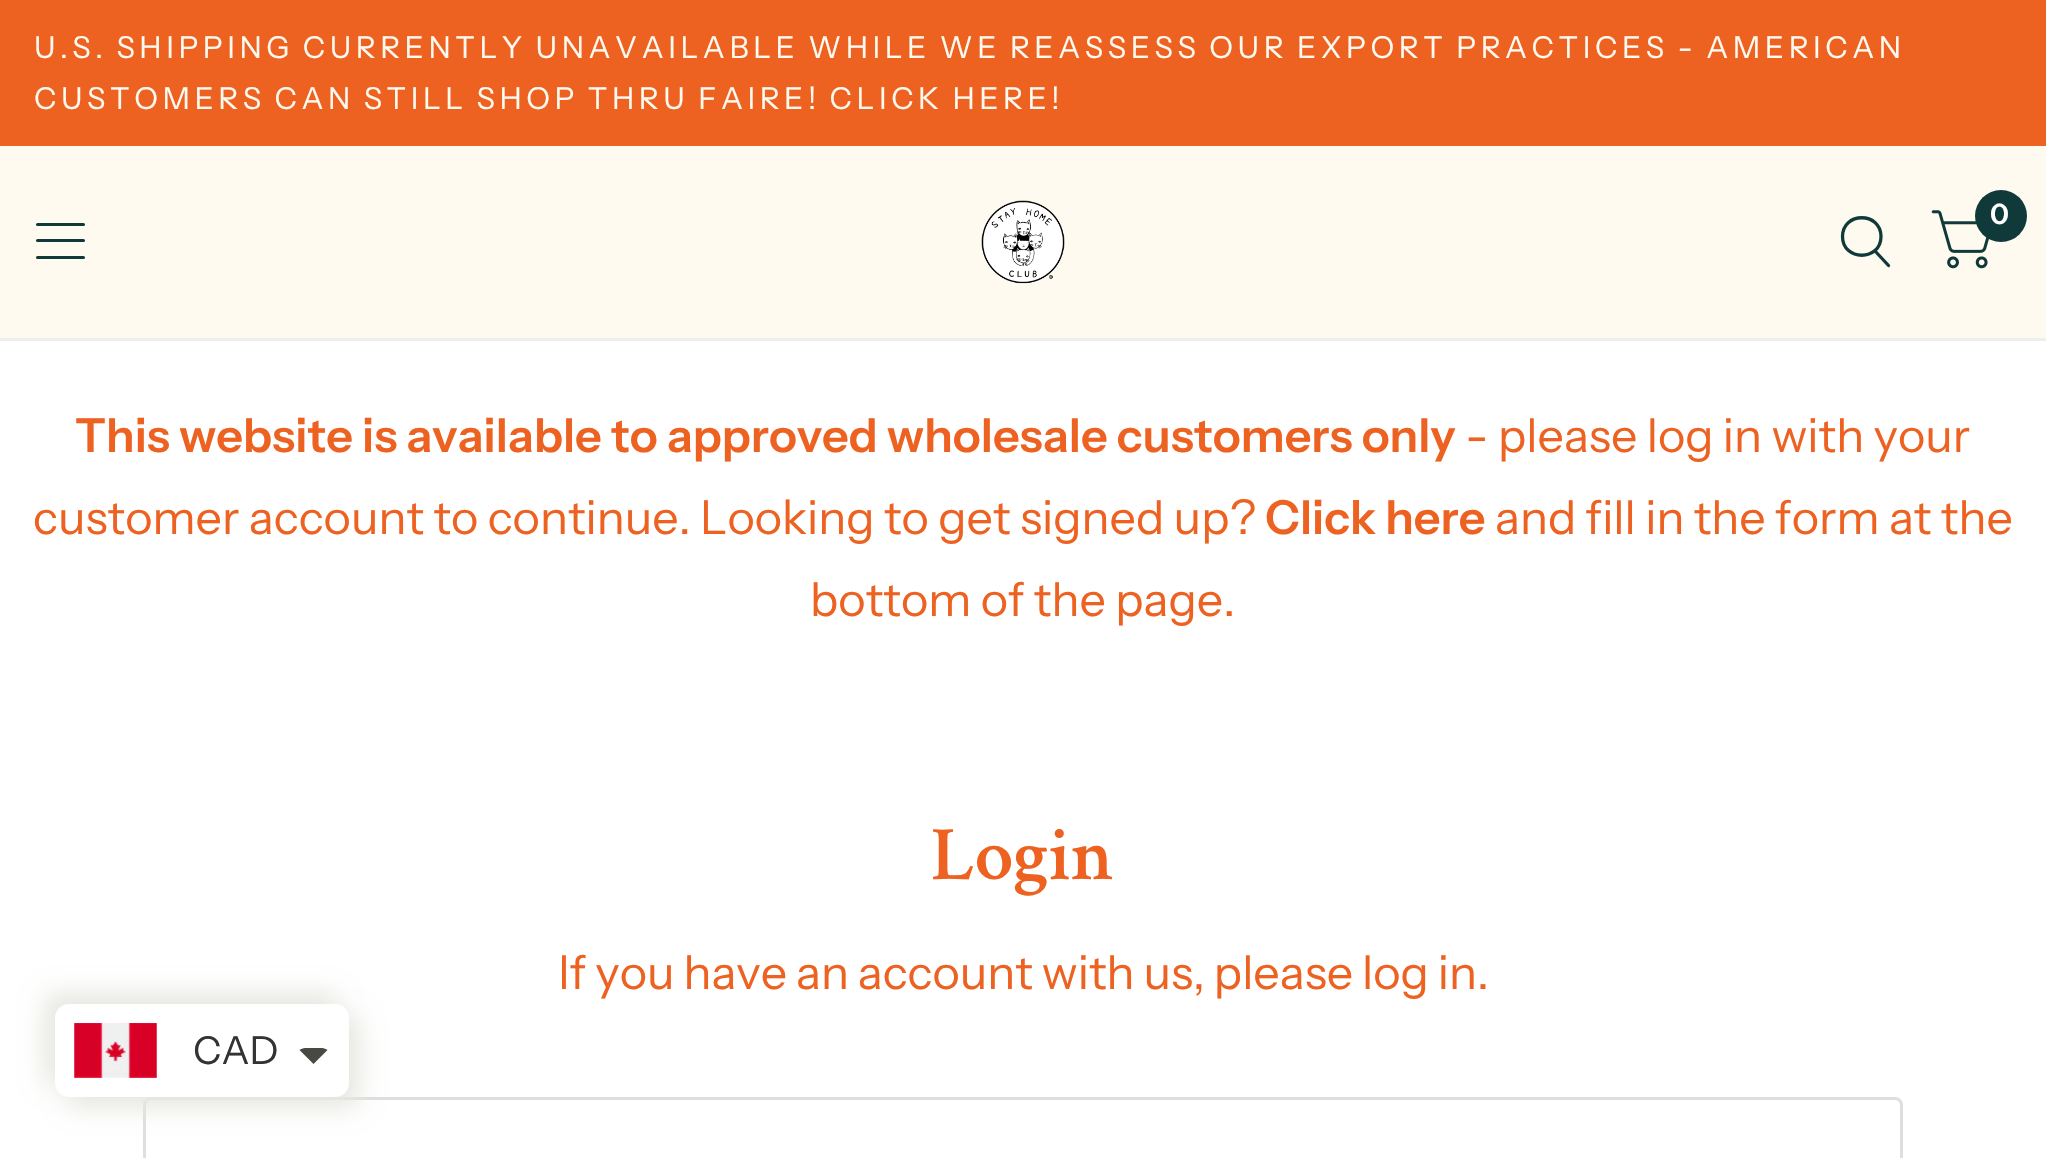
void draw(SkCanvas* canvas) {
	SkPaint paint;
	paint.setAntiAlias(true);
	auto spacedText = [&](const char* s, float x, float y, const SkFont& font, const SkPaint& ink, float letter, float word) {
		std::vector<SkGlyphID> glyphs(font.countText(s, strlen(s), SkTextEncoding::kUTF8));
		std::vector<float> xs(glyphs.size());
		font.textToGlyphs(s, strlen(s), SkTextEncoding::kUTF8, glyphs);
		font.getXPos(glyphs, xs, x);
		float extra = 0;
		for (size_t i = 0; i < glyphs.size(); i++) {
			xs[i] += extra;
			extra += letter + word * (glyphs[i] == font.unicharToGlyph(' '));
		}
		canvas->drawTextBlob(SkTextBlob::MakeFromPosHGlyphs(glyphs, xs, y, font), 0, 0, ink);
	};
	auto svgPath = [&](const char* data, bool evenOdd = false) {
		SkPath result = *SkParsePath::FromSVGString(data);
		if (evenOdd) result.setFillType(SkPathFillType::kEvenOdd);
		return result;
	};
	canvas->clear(0xffffffff);
	paint.setColor(0xffed6121);
	canvas->drawRect(SkRect::MakeXYWH(0, 0, 2046, 146), paint);
	SkFont f1(fontMgr->matchFamilyStyle("Instrument Sans", SkFontStyle::Normal()), 30.25);
	f1.setSubpixel(true);
	paint.setColor(0xfffefaf0);
	spacedText("U.S. SHIPPING CURRENTLY UNAVAILABLE WHILE WE REASSESS OUR EXPORT PRACTICES - AMERICAN", 34, 58, f1, paint, 4.55, -1.75);
	spacedText("CUSTOMERS CAN STILL SHOP THRU FAIRE! CLICK HERE!", 34, 109, f1, paint, 4.55, -1.75);
	canvas->drawRect(SkRect::MakeXYWH(0, 146, 2046, 192), paint);
	paint.setColor(0xffeeeeee);
	canvas->drawRect(SkRect::MakeXYWH(0, 338, 2046, 3), paint);
	canvas->drawImageRect(SkImages::DeferredFromEncodedData(SkData::MakeFromFileName("img1.png")), SkRect::MakeXYWH(981, 200, 84, 84), SkSamplingOptions());
	paint.setStroke(true);
	paint.setStrokeWidth(3.3);
	paint.setStrokeCap(SkPaint::kRound_Cap);
	paint.setStrokeJoin(SkPaint::kRound_Join);
	paint.setColor(0xff103a3a);
	canvas->drawPath(svgPath("M1875.5 251.5L1888.5 265.5M1881 236.5C1881 261.5 1842.5 261.5 1842.5 236.5C1842.5 211.5 1881 211.5 1881 236.5Z"), paint);
	canvas->drawImageRect(SkImages::DeferredFromEncodedData(SkData::MakeFromFileName("img2.png")), SkRect::MakeXYWH(1931, 210, 58, 59), SkSamplingOptions());
	paint.setStroke(false);
	canvas->drawCircle(2001, 216, 26, paint);
	SkFont f2(fontMgr->matchFamilyStyle("Instrument Sans", SkFontStyle(600, SkFontStyle::kNormal_Width, SkFontStyle::kUpright_Slant)), 28);
	f2.setSubpixel(true);
	paint.setColor(0xffffffff);
	canvas->drawString("0", 1990, 224, f2, paint);
	paint.setColor(0xff103a3a);
	canvas->drawRoundRect(SkRect::MakeXYWH(36, 223, 49, 3), 1.5, 1.5, paint);
	canvas->drawRoundRect(SkRect::MakeXYWH(36, 239, 49, 3), 1.5, 1.5, paint);
	canvas->drawRoundRect(SkRect::MakeXYWH(36, 256, 49, 3), 1.5, 1.5, paint);
	SkFont f3(fontMgr->matchFamilyStyle("Instrument Sans", SkFontStyle(600, SkFontStyle::kNormal_Width, SkFontStyle::kUpright_Slant)), 46.75);
	f3.setSubpixel(true);
	paint.setColor(0xffed6121);
	canvas->drawString("This website is available to approved wholesale customers only", 75, 452, f3, paint);
	SkFont f4(fontMgr->matchFamilyStyle("Instrument Sans", SkFontStyle::Normal()), 46.75);
	f4.setSubpixel(true);
	canvas->drawString("- please log in with your", 1465, 452, f4, paint);
	canvas->drawString("customer account to continue. Looking to get signed up?", 33, 534, f4, paint);
	canvas->drawString("Click here", 1265, 534, f3, paint);
	canvas->drawString("and fill in the form at the", 1495, 534, f4, paint);
	canvas->drawString("bottom of the page.", 810, 616, f4, paint);
	SkFont f5(fontMgr->matchFamilyStyle("Crimson Text", SkFontStyle(600, SkFontStyle::kNormal_Width, SkFontStyle::kUpright_Slant)), 77);
	f5.setSubpixel(true);
	canvas->drawString("Login", 931, 879, f5, paint);
	spacedText("If you have an account with us, please log in.", 558, 989, f4, paint, 0, -0.5);
	paint.setStroke(true);
	paint.setStrokeWidth(3);
	paint.setStrokeCap(SkPaint::kButt_Cap);
	paint.setStrokeJoin(SkPaint::kMiter_Join);
	paint.setColor(0xffdedede);
	canvas->drawRoundRect(SkRect::MakeXYWH(144.5, 1098.5, 1757, 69), 6.5, 6.5, paint);
	paint.setStroke(false);
	paint.setColor(0xffe8e8e2);
	paint.setMaskFilter(SkMaskFilter::MakeBlur(kNormal_SkBlurStyle, 12.5));
	canvas->drawRoundRect(SkRect::MakeXYWH(44, 993, 294, 93), 14, 14, paint);
	paint.setMaskFilter(nullptr);
	paint.setMaskFilter(SkMaskFilter::MakeBlur(kNormal_SkBlurStyle, 12.5));
	canvas->drawRoundRect(SkRect::MakeXYWH(66, 1015, 294, 93), 14, 14, paint);
	paint.setMaskFilter(nullptr);
	paint.setColor(0xffffffff);
	canvas->drawRoundRect(SkRect::MakeXYWH(55, 1004, 294, 93), 14, 14, paint);
	canvas->drawImageRect(SkImages::DeferredFromEncodedData(SkData::MakeFromFileName("img3.png")), SkRect::MakeXYWH(74, 1023, 83, 55), SkSamplingOptions());
	SkFont f6(fontMgr->matchFamilyStyle("Instrument Sans", SkFontStyle::Normal()), 38.5);
	f6.setSubpixel(true);
	paint.setColor(0xff333333);
	canvas->drawString("CAD", 193, 1064, f6, paint);
	paint.setColor(0xff474942);
	canvas->drawPath(svgPath("M305 1048H322C324 1048 326 1049 327.5 1050L313.5 1064L299.5 1050C301 1049 303 1048 305 1048Z"), paint);
}
